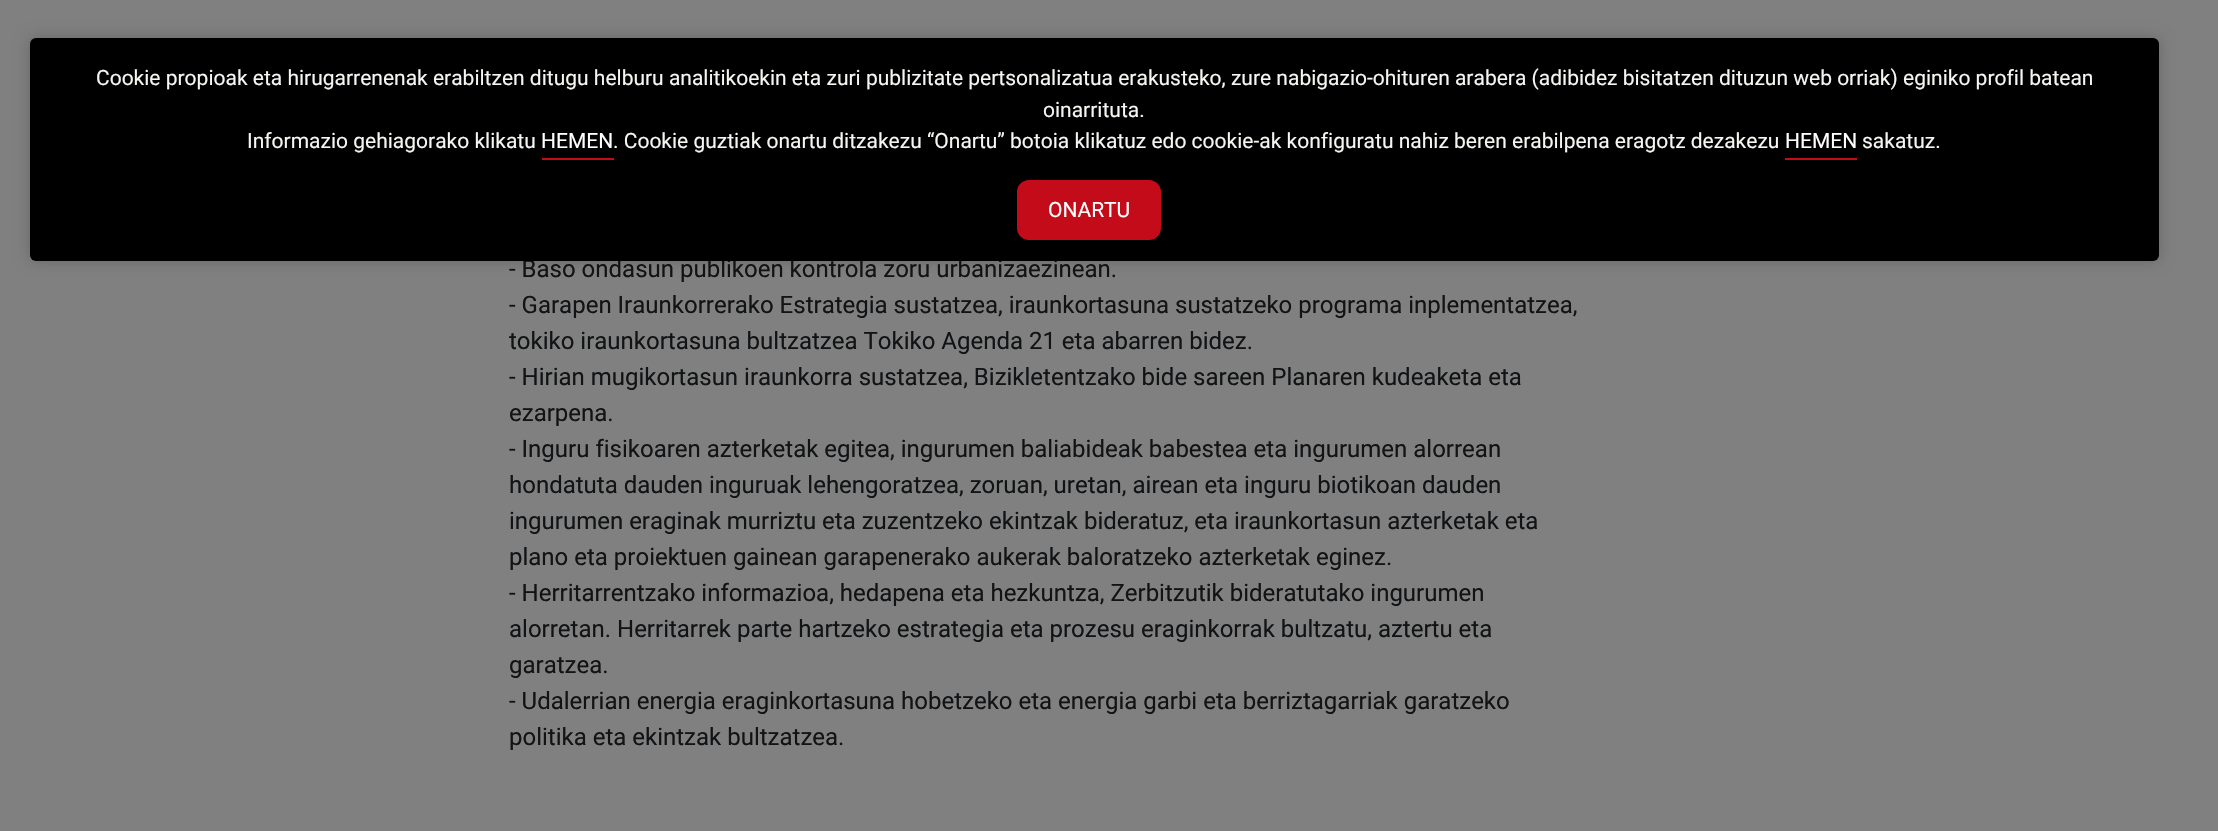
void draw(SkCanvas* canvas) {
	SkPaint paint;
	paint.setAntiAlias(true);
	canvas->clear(0xff808080);
	paint.setColor(0x33000000);
	paint.setMaskFilter(SkMaskFilter::MakeBlur(kNormal_SkBlurStyle, 7.5));
	canvas->drawRoundRect(SkRect::MakeXYWH(30, 38, 2129, 223), 6, 6, paint);
	paint.setMaskFilter(nullptr);
	SkFont f1(fontMgr->matchFamilyStyle("Roboto", SkFontStyle::Normal()), 24);
	f1.setSubpixel(true);
	paint.setColor(0xff111315);
	canvas->drawString("- Baso ondasun publikoen kontrola zoru urbanizaezinean.", 509, 277, f1, paint);
	paint.setColor(0xff000000);
	canvas->drawRoundRect(SkRect::MakeXYWH(30, 38, 2129, 223), 6, 6, paint);
	SkFont f2(fontMgr->matchFamilyStyle("Roboto", SkFontStyle::Normal()), 21);
	f2.setSubpixel(true);
	paint.setColor(0xfff5f5f2);
	canvas->drawString("Cookie propioak eta hirugarrenenak erabiltzen ditugu helburu analitikoekin eta zuri publizitate pertsonalizatua erakusteko, zure nabigazio-ohituren arabera (adibidez bisitatzen dituzun web orriak) eginiko profil batean", 96, 85, f2, paint);
	canvas->drawString("oinarrituta.", 1043, 117, f2, paint);
	canvas->drawString("Informazio gehiagorako klikatu", 247, 148, f2, paint);
	paint.setColor(0xffc30b19);
	canvas->drawRect(SkRect::MakeXYWH(542, 158, 72, 2), paint);
	paint.setColor(0xffffffff);
	canvas->drawString("HEMEN", 541, 148, f2, paint);
	paint.setColor(0xfff5f5f2);
	canvas->drawString(". Cookie guztiak onartu ditzakezu “Onartu” botoia klikatuz edo cookie-ak konfiguratu nahiz beren erabilpena eragotz dezakezu", 613, 148, f2, paint);
	paint.setColor(0xffc30b19);
	canvas->drawRect(SkRect::MakeXYWH(1785, 158, 72, 2), paint);
	paint.setColor(0xffffffff);
	canvas->drawString("HEMEN", 1785, 148, f2, paint);
	paint.setColor(0xfff5f5f2);
	canvas->drawString("sakatuz.", 1862, 148, f2, paint);
	paint.setColor(0xffc30b19);
	canvas->drawRoundRect(SkRect::MakeXYWH(1017, 180, 144, 60), 12, 12, paint);
	paint.setColor(0xffffffff);
	canvas->drawString("ONARTU", 1048, 217, f2, paint);
	paint.setColor(0xff111315);
	canvas->drawString("- Garapen Iraunkorrerako Estrategia sustatzea, iraunkortasuna sustatzeko programa inplementatzea,", 509, 313, f1, paint);
	canvas->drawString("tokiko iraunkortasuna bultzatzea Tokiko Agenda 21 eta abarren bidez.", 509, 349, f1, paint);
	canvas->drawString("- Hirian mugikortasun iraunkorra sustatzea, Bizikletentzako bide sareen Planaren kudeaketa eta", 509, 385, f1, paint);
	canvas->drawString("ezarpena.", 509, 421, f1, paint);
	canvas->drawString("- Inguru fisikoaren azterketak egitea, ingurumen baliabideak babestea eta ingurumen alorrean", 509, 457, f1, paint);
	canvas->drawString("hondatuta dauden inguruak lehengoratzea, zoruan, uretan, airean eta inguru biotikoan dauden", 509, 493, f1, paint);
	canvas->drawString("ingurumen eraginak murriztu eta zuzentzeko ekintzak bideratuz, eta iraunkortasun azterketak eta", 509, 529, f1, paint);
	canvas->drawString("plano eta proiektuen gainean garapenerako aukerak baloratzeko azterketak eginez.", 509, 565, f1, paint);
	canvas->drawString("- Herritarrentzako informazioa, hedapena eta hezkuntza, Zerbitzutik bideratutako ingurumen", 509, 601, f1, paint);
	canvas->drawString("alorretan. Herritarrek parte hartzeko estrategia eta prozesu eraginkorrak bultzatu, aztertu eta", 509, 637, f1, paint);
	canvas->drawString("garatzea.", 509, 673, f1, paint);
	canvas->drawString("- Udalerrian energia eraginkortasuna hobetzeko eta energia garbi eta berriztagarriak garatzeko", 509, 709, f1, paint);
	canvas->drawString("politika eta ekintzak bultzatzea.", 509, 745, f1, paint);
}
